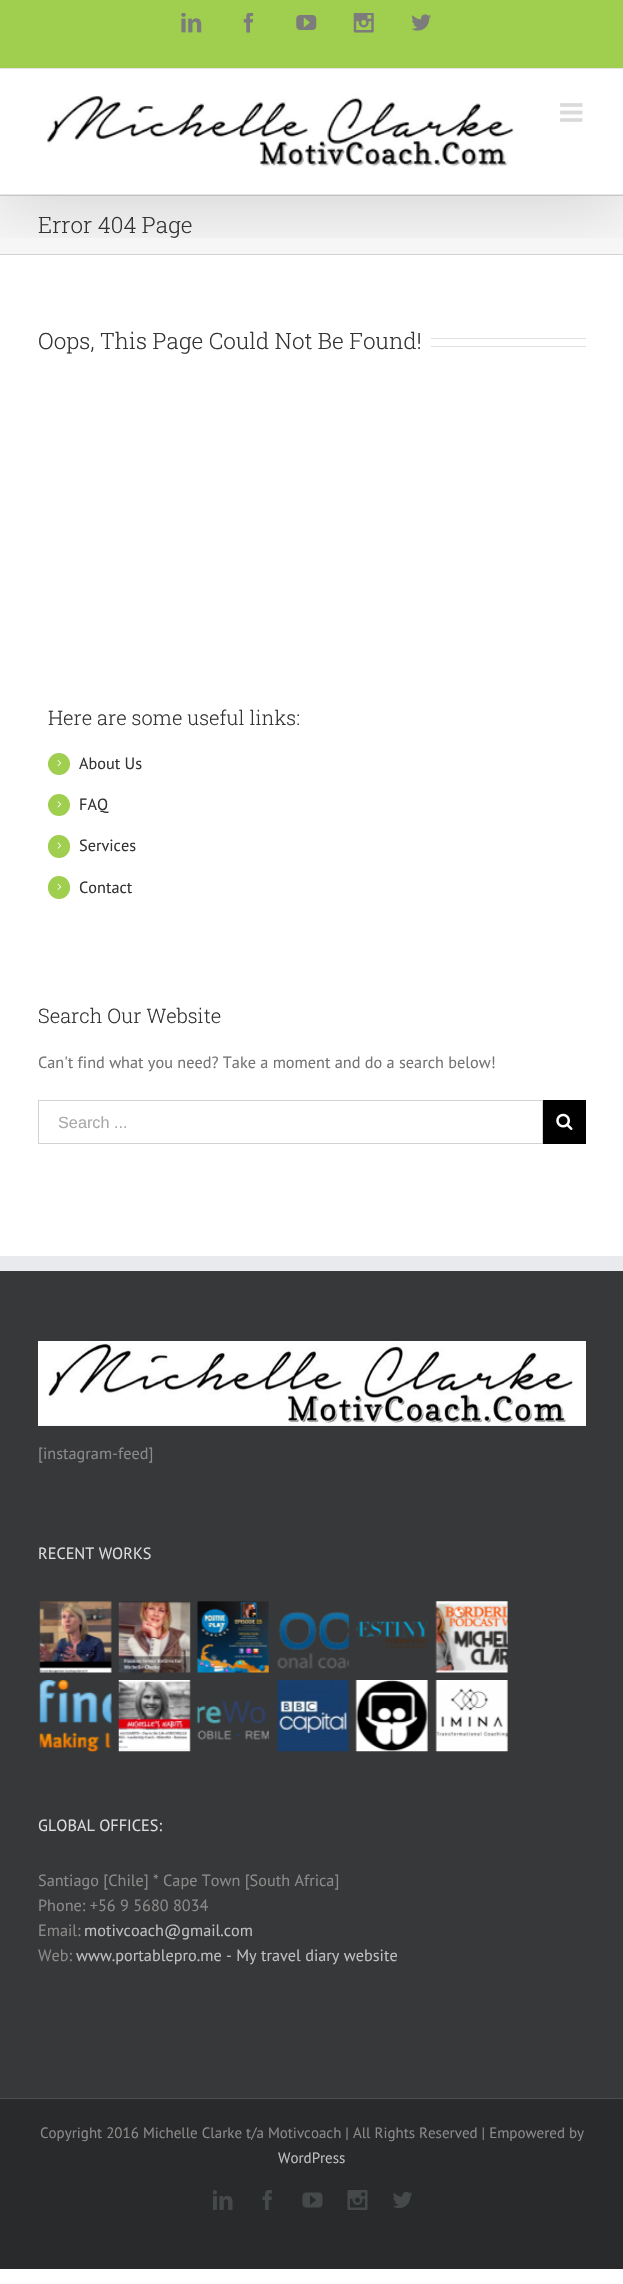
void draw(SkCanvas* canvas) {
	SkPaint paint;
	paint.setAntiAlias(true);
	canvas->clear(0xffffffff);
	paint.setColor(0xfff6f6f6);
	canvas->drawRect(SkRect::MakeXYWH(0, 196, 623, 58), paint);
	paint.setColor(0xffd2d3d4);
	canvas->drawRect(SkRect::MakeXYWH(0, 195, 623, 1), paint);
	canvas->drawRect(SkRect::MakeXYWH(0, 254, 623, 1), paint);
	canvas->save();
	canvas->clipRect(SkRect::MakeXYWH(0, 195, 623, 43));
	paint.setColor(0x24000000);
	paint.setMaskFilter(SkMaskFilter::MakeBlur(kNormal_SkBlurStyle, 31));
	canvas->drawRect(SkRect::MakeXYWH(3, 15, 618, 190), paint);
	paint.setMaskFilter(nullptr);
	canvas->restore();
	paint.setColor(0xffa0ce4e);
	canvas->drawRect(SkRect::MakeXYWH(0, 0, 623, 68), paint);
	paint.setColor(0xffe5e5e5);
	canvas->drawRect(SkRect::MakeXYWH(0, 68, 623, 1), paint);
	canvas->drawImageRect(SkImages::DeferredFromEncodedData(SkData::MakeFromFileName("img1.png")), SkRect::MakeXYWH(181, 13, 21, 20), SkSamplingOptions());
	canvas->drawImageRect(SkImages::DeferredFromEncodedData(SkData::MakeFromFileName("img2.png")), SkRect::MakeXYWH(243, 13, 11, 20), SkSamplingOptions());
	canvas->drawImageRect(SkImages::DeferredFromEncodedData(SkData::MakeFromFileName("img3.png")), SkRect::MakeXYWH(296, 15, 21, 15), SkSamplingOptions());
	canvas->drawImageRect(SkImages::DeferredFromEncodedData(SkData::MakeFromFileName("img4.png")), SkRect::MakeXYWH(353, 13, 21, 20), SkSamplingOptions());
	canvas->drawImageRect(SkImages::DeferredFromEncodedData(SkData::MakeFromFileName("img5.png")), SkRect::MakeXYWH(411, 14, 20, 17), SkSamplingOptions());
	canvas->drawRect(SkRect::MakeXYWH(0, 194, 623, 1), paint);
	canvas->drawImageRect(SkImages::DeferredFromEncodedData(SkData::MakeFromFileName("img6.png")), SkRect::MakeXYWH(47, 95, 467, 72), SkSamplingOptions());
	canvas->drawImageRect(SkImages::DeferredFromEncodedData(SkData::MakeFromFileName("img7.png")), SkRect::MakeXYWH(560, 103, 23, 19), SkSamplingOptions());
	SkFont f1(fontMgr->matchFamilyStyle("Roboto Slab", SkFontStyle(300, SkFontStyle::kNormal_Width, SkFontStyle::kUpright_Slant)), 22.5);
	f1.setSubpixel(true);
	paint.setColor(0xff333333);
	canvas->drawString("Error 404 Page", 38, 233, f1, paint);
	canvas->drawString("Oops, This Page Could Not Be Found!", 38, 349, f1, paint);
	paint.setColor(0xffe0dede);
	canvas->drawRect(SkRect::MakeXYWH(431, 338, 155, 1), paint);
	canvas->drawRect(SkRect::MakeXYWH(431, 346, 155, 1), paint);
	SkFont f2(fontMgr->matchFamilyStyle("Roboto Slab", SkFontStyle(300, SkFontStyle::kNormal_Width, SkFontStyle::kUpright_Slant)), 20);
	f2.setSubpixel(true);
	paint.setColor(0xff333333);
	canvas->drawString("Here are some useful links:", 48, 725, f2, paint);
	paint.setColor(0xffa0ce4e);
	canvas->drawCircle(59, 764, 11, paint);
	canvas->drawImageRect(SkImages::DeferredFromEncodedData(SkData::MakeFromFileName("img8.png")), SkRect::MakeXYWH(57, 760, 5, 7), SkSamplingOptions());
	SkFont f3(fontMgr->matchFamilyStyle("PT Sans", SkFontStyle::Normal()), 16.25);
	f3.setSubpixel(true);
	paint.setColor(0xff333333);
	canvas->drawString("About Us", 79, 769, f3, paint);
	paint.setColor(0xffa0ce4e);
	canvas->drawCircle(59, 805, 11, paint);
	canvas->drawImageRect(SkImages::DeferredFromEncodedData(SkData::MakeFromFileName("img9.png")), SkRect::MakeXYWH(57, 801, 5, 7), SkSamplingOptions());
	paint.setColor(0xff333333);
	canvas->drawString("FAQ", 79, 810, f3, paint);
	paint.setColor(0xffa0ce4e);
	canvas->drawRoundRect(SkRect::MakeXYWH(48, 835, 22, 23), 11, 11, paint);
	canvas->drawImageRect(SkImages::DeferredFromEncodedData(SkData::MakeFromFileName("img10.png")), SkRect::MakeXYWH(57, 842, 5, 7), SkSamplingOptions());
	paint.setColor(0xff333333);
	canvas->drawString("Services", 79, 851, f3, paint);
	paint.setColor(0xffa0ce4e);
	canvas->drawRoundRect(SkRect::MakeXYWH(48, 876, 22, 23), 11, 11, paint);
	canvas->drawImageRect(SkImages::DeferredFromEncodedData(SkData::MakeFromFileName("img11.png")), SkRect::MakeXYWH(57, 883, 5, 7), SkSamplingOptions());
	paint.setColor(0xff333333);
	canvas->drawString("Contact", 79, 893, f3, paint);
	canvas->drawString("Search Our Website", 38, 1023, f2, paint);
	paint.setColor(0xff747474);
	canvas->drawString("Can't find what you need? Take a moment and do a search below!", 38, 1068, f3, paint);
	paint.setStroke(true);
	paint.setStrokeWidth(1);
	paint.setColor(0xffd2d2d2);
	canvas->drawRect(SkRect::MakeXYWH(38.5, 1100.5, 504, 43), paint);
	SkFont f4(fontMgr->matchFamilyStyle("Liberation Sans", SkFontStyle::Normal()), 16.25);
	f4.setSubpixel(true);
	paint.setStroke(false);
	paint.setColor(0xffaaa9a9);
	canvas->drawString("Search ...", 58, 1128, f4, paint);
	paint.setColor(0xff000000);
	canvas->drawRect(SkRect::MakeXYWH(543, 1100, 43, 44), paint);
	canvas->drawImageRect(SkImages::DeferredFromEncodedData(SkData::MakeFromFileName("img12.png")), SkRect::MakeXYWH(556, 1113, 17, 17), SkSamplingOptions());
	paint.setColor(0xff363839);
	canvas->drawRect(SkRect::MakeXYWH(0, 1271, 623, 827), paint);
	paint.setColor(0xffe9eaee);
	canvas->drawRect(SkRect::MakeXYWH(0, 1256, 623, 15), paint);
	canvas->drawImageRect(SkImages::DeferredFromEncodedData(SkData::MakeFromFileName("img13.png")), SkRect::MakeXYWH(38, 1341, 548, 85), SkSamplingOptions());
	paint.setColor(0xff8c8989);
	canvas->drawString("[instagram-feed]", 38, 1459, f3, paint);
	paint.setColor(0xffdddddd);
	canvas->drawString("RECENT WORKS", 38, 1559, f3, paint);
	canvas->drawImageRect(SkImages::DeferredFromEncodedData(SkData::MakeFromFileName("img14.png")), SkRect::MakeXYWH(39, 1601, 73, 72), SkSamplingOptions());
	canvas->drawImageRect(SkImages::DeferredFromEncodedData(SkData::MakeFromFileName("img15.png")), SkRect::MakeXYWH(118, 1601, 73, 72), SkSamplingOptions());
	canvas->drawImageRect(SkImages::DeferredFromEncodedData(SkData::MakeFromFileName("img16.png")), SkRect::MakeXYWH(196, 1601, 73, 72), SkSamplingOptions());
	canvas->drawImageRect(SkImages::DeferredFromEncodedData(SkData::MakeFromFileName("img17.png")), SkRect::MakeXYWH(277, 1612, 72, 57), SkSamplingOptions());
	canvas->drawImageRect(SkImages::DeferredFromEncodedData(SkData::MakeFromFileName("img18.png")), SkRect::MakeXYWH(355, 1620, 73, 29), SkSamplingOptions());
	canvas->drawImageRect(SkImages::DeferredFromEncodedData(SkData::MakeFromFileName("img19.png")), SkRect::MakeXYWH(435, 1601, 73, 72), SkSamplingOptions());
	canvas->drawImageRect(SkImages::DeferredFromEncodedData(SkData::MakeFromFileName("img20.png")), SkRect::MakeXYWH(39, 1680, 73, 72), SkSamplingOptions());
	canvas->drawImageRect(SkImages::DeferredFromEncodedData(SkData::MakeFromFileName("img21.png")), SkRect::MakeXYWH(118, 1680, 73, 72), SkSamplingOptions());
	canvas->drawImageRect(SkImages::DeferredFromEncodedData(SkData::MakeFromFileName("img22.png")), SkRect::MakeXYWH(196, 1700, 73, 40), SkSamplingOptions());
	canvas->drawImageRect(SkImages::DeferredFromEncodedData(SkData::MakeFromFileName("img23.png")), SkRect::MakeXYWH(277, 1680, 72, 72), SkSamplingOptions());
	canvas->drawImageRect(SkImages::DeferredFromEncodedData(SkData::MakeFromFileName("img24.png")), SkRect::MakeXYWH(355, 1680, 73, 72), SkSamplingOptions());
	canvas->drawImageRect(SkImages::DeferredFromEncodedData(SkData::MakeFromFileName("img25.png")), SkRect::MakeXYWH(435, 1680, 73, 72), SkSamplingOptions());
	canvas->drawString("GLOBAL OFFICES:", 38, 1831, f3, paint);
	paint.setColor(0xff8c8989);
	canvas->drawString("Santiago [Chile] * Cape Town [South Africa]", 38, 1886, f3, paint);
	canvas->drawString("Phone: +56 9 5680 8034", 38, 1911, f3, paint);
	canvas->drawString("Email:", 38, 1936, f3, paint);
	paint.setColor(0xffbfbfbf);
	canvas->drawString("motivcoach@gmail.com", 84, 1936, f3, paint);
	paint.setColor(0xff8c8989);
	canvas->drawString("Web:", 38, 1961, f3, paint);
	paint.setColor(0xffbfbfbf);
	canvas->drawString("www.portablepro.me - My travel diary website", 76, 1961, f3, paint);
	paint.setColor(0xff282a2b);
	canvas->drawRect(SkRect::MakeXYWH(0, 2099, 623, 170), paint);
	paint.setColor(0xff4b4c4d);
	canvas->drawRect(SkRect::MakeXYWH(0, 2098, 623, 1), paint);
	SkFont f5(fontMgr->matchFamilyStyle("PT Sans", SkFontStyle::Normal()), 15);
	f5.setSubpixel(true);
	paint.setColor(0xff8c8989);
	canvas->drawString("Copyright 2016 Michelle Clarke t/a Motivcoach | All Rights Reserved | Empowered by", 40, 2138, f5, paint);
	paint.setColor(0xffbfbfbf);
	canvas->drawString("WordPress", 278, 2163, f5, paint);
	canvas->drawImageRect(SkImages::DeferredFromEncodedData(SkData::MakeFromFileName("img26.png")), SkRect::MakeXYWH(213, 2190, 20, 20), SkSamplingOptions());
	canvas->drawImageRect(SkImages::DeferredFromEncodedData(SkData::MakeFromFileName("img27.png")), SkRect::MakeXYWH(262, 2190, 10, 20), SkSamplingOptions());
	canvas->drawImageRect(SkImages::DeferredFromEncodedData(SkData::MakeFromFileName("img28.png")), SkRect::MakeXYWH(302, 2192, 21, 16), SkSamplingOptions());
	canvas->drawImageRect(SkImages::DeferredFromEncodedData(SkData::MakeFromFileName("img29.png")), SkRect::MakeXYWH(347, 2190, 21, 20), SkSamplingOptions());
	canvas->drawImageRect(SkImages::DeferredFromEncodedData(SkData::MakeFromFileName("img30.png")), SkRect::MakeXYWH(393, 2192, 19, 16), SkSamplingOptions());
}
